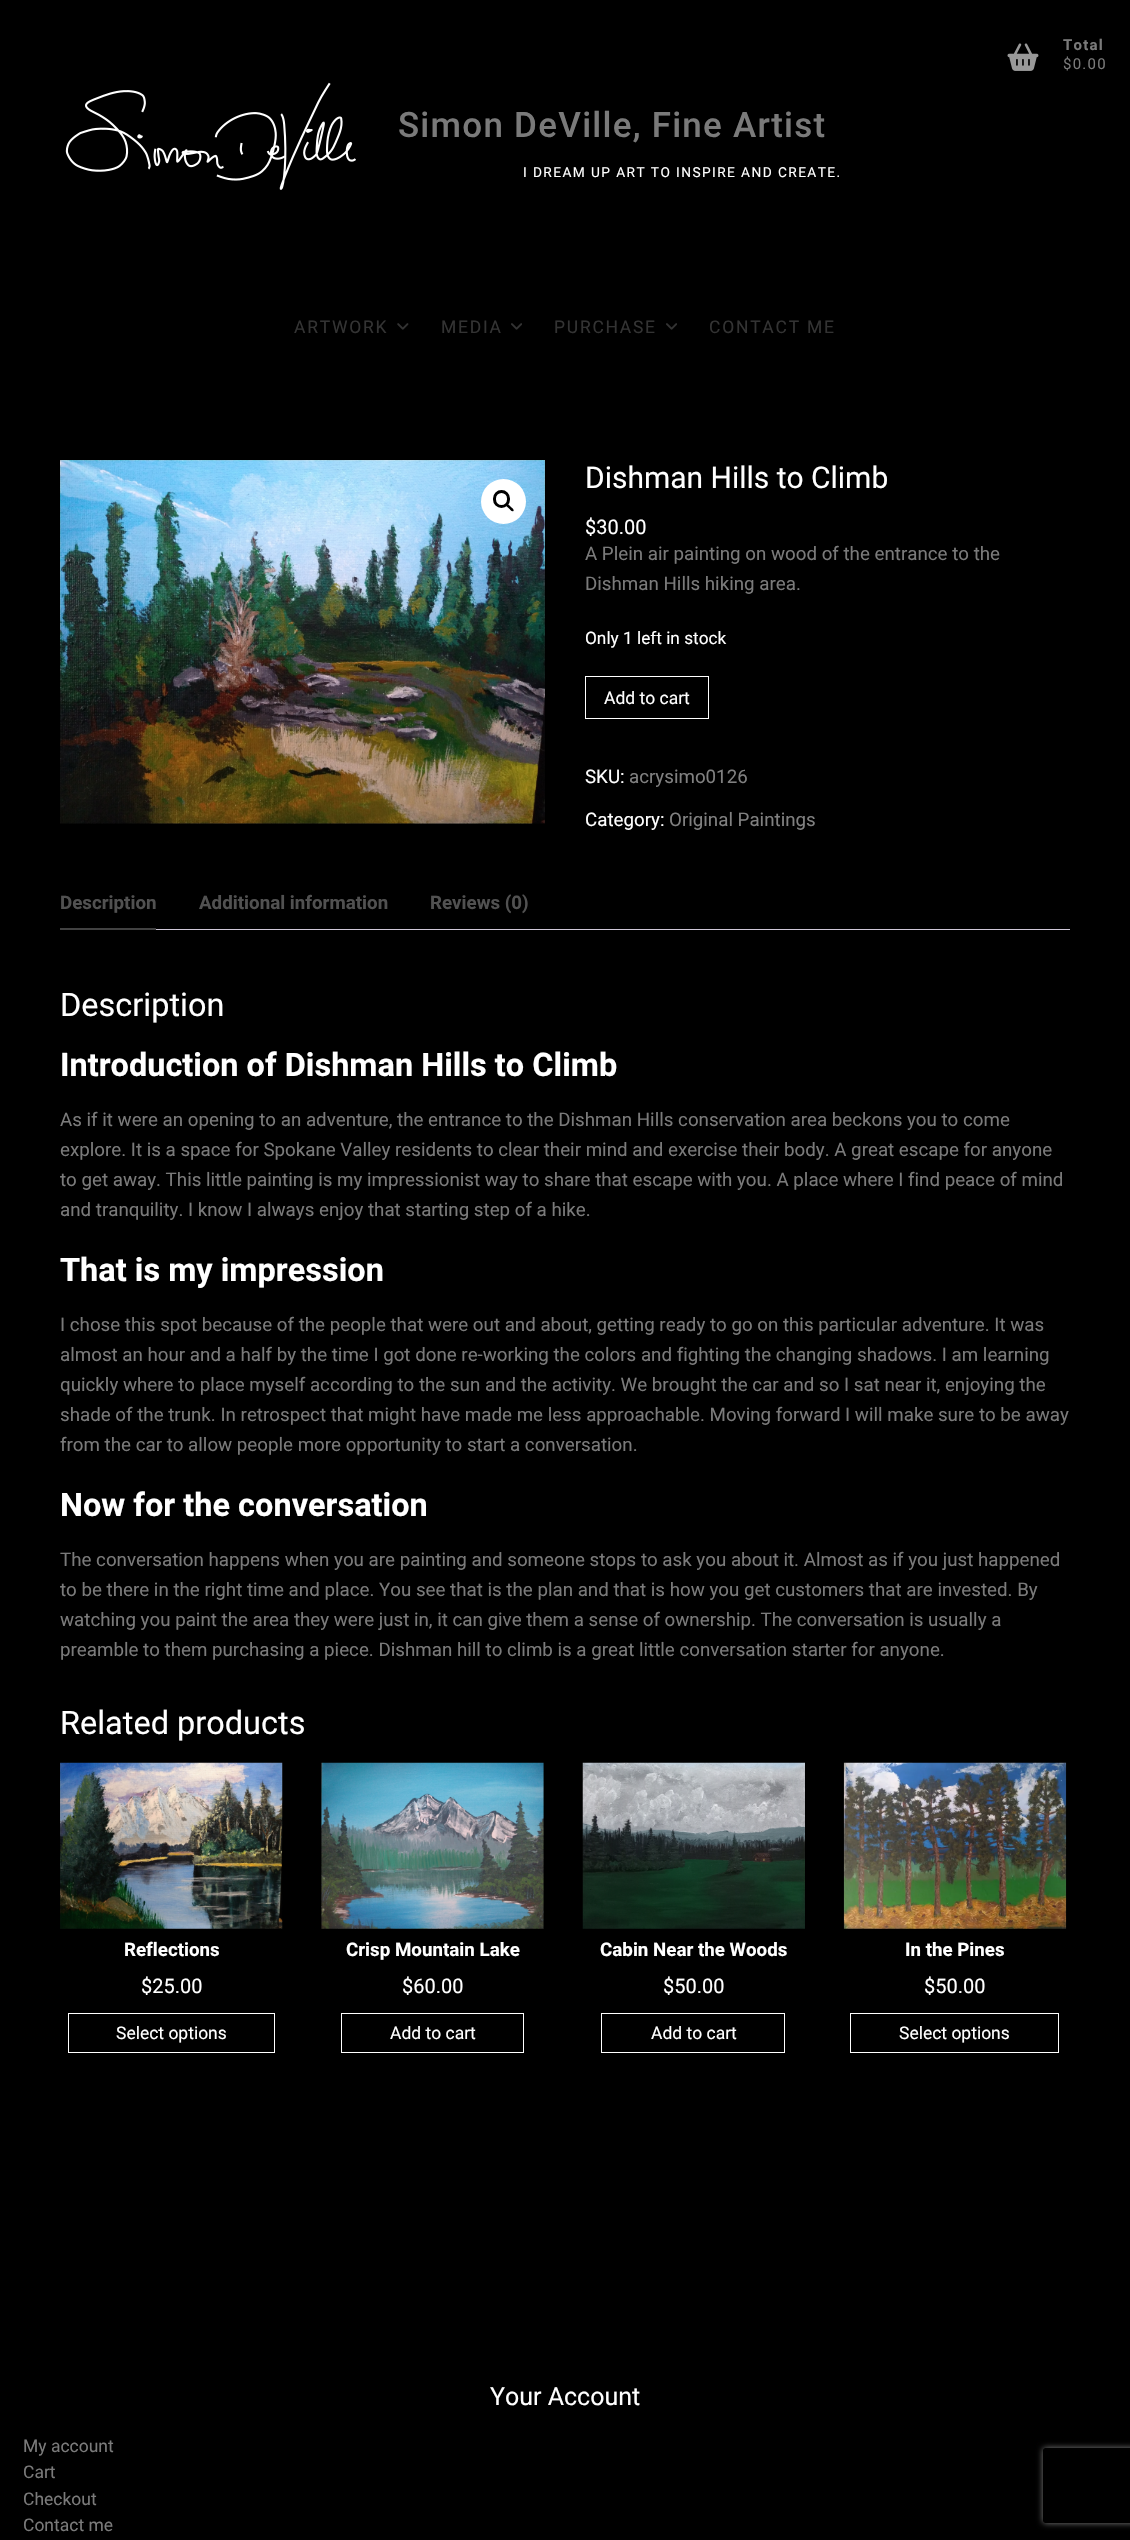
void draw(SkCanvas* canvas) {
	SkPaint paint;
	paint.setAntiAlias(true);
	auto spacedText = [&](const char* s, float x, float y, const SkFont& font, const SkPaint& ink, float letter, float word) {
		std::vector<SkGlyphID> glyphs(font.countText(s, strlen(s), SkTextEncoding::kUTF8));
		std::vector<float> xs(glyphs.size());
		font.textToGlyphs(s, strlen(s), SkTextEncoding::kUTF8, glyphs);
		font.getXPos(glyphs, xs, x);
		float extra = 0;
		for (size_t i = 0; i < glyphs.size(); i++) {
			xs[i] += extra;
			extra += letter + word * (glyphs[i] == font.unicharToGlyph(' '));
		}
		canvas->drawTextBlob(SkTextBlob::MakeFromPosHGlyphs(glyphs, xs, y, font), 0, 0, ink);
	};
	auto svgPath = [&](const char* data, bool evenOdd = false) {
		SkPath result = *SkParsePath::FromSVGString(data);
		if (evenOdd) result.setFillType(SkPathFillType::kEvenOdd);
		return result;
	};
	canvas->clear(0xff000000);
	canvas->drawImageRect(SkImages::DeferredFromEncodedData(SkData::MakeFromFileName("img1.png")), SkRect::MakeXYWH(1007, 43, 32, 28), SkSamplingOptions());
	SkFont f1(fontMgr->matchFamilyStyle("Roboto", SkFontStyle::Bold()), 15);
	f1.setSubpixel(true);
	paint.setColor(0xff7a7a7a);
	spacedText("Total", 1063, 50, f1, paint, 1.25, 0);
	SkFont f2(fontMgr->matchFamilyStyle("Roboto", SkFontStyle::Normal()), 15);
	f2.setSubpixel(true);
	spacedText("$0.00", 1063, 69, f2, paint, 1.25, 0);
	canvas->drawImageRect(SkImages::DeferredFromEncodedData(SkData::MakeFromFileName("img2.png")), SkRect::MakeXYWH(65, 82, 291, 108), SkSamplingOptions());
	SkFont f3(fontMgr->matchFamilyStyle("Roboto", SkFontStyle(500, SkFontStyle::kNormal_Width, SkFontStyle::kUpright_Slant)), 35);
	f3.setSubpixel(true);
	spacedText("Simon DeVille, Fine Artist", 398, 137, f3, paint, 1.25, 0);
	SkFont f4(fontMgr->matchFamilyStyle("Roboto", SkFontStyle::Normal()), 13.75);
	f4.setSubpixel(true);
	paint.setColor(0xffffffff);
	spacedText("I DREAM UP ART TO INSPIRE AND CREATE.", 523, 177, f4, paint, 1.4, 0);
	SkFont f5(fontMgr->matchFamilyStyle("Roboto", SkFontStyle::Normal()), 17.5);
	f5.setSubpixel(true);
	paint.setColor(0xff333333);
	spacedText("ARTWORK", 294, 333, f5, paint, 1.75, 0);
	canvas->drawImageRect(SkImages::DeferredFromEncodedData(SkData::MakeFromFileName("img3.png")), SkRect::MakeXYWH(397, 323, 12, 7), SkSamplingOptions());
	spacedText("MEDIA", 441, 333, f5, paint, 1.75, 0);
	canvas->drawImageRect(SkImages::DeferredFromEncodedData(SkData::MakeFromFileName("img4.png")), SkRect::MakeXYWH(511, 323, 11, 7), SkSamplingOptions());
	spacedText("PURCHASE", 554, 333, f5, paint, 1.75, 0);
	canvas->drawImageRect(SkImages::DeferredFromEncodedData(SkData::MakeFromFileName("img4.png")), SkRect::MakeXYWH(666, 323, 11, 7), SkSamplingOptions());
	spacedText("CONTACT ME", 709, 333, f5, paint, 1.75, 0);
	canvas->drawImageRect(SkImages::DeferredFromEncodedData(SkData::MakeFromFileName("img5.png")), SkRect::MakeXYWH(60, 460, 485, 364), SkSamplingOptions());
	paint.setColor(0xffffffff);
	canvas->drawCircle(503.5, 501.5, 22.5, paint);
	paint.setStroke(true);
	paint.setStrokeWidth(3);
	paint.setColor(0xff000000);
	canvas->drawRoundRect(SkRect::MakeXYWH(494.5, 491.5, 14, 15), 7, 7, paint);
	paint.setStroke(false);
	canvas->drawPath(svgPath("M506 504C507.5 502.5 510 506 510.5 506.5C511.5 507.5 514.5 509.5 513.5 511C512 512.5 509.5 509 509 508.5C508 507.5 505 505.5 506 504Z"), paint);
	SkFont f6(fontMgr->matchFamilyStyle("Roboto", SkFontStyle::Normal()), 30);
	f6.setSubpixel(true);
	paint.setColor(0xffffffff);
	canvas->drawString("Dishman Hills to Climb", 585, 488, f6, paint);
	SkFont f7(fontMgr->matchFamilyStyle("Roboto", SkFontStyle::Normal()), 20);
	f7.setSubpixel(true);
	canvas->drawString("$30.00", 585, 534, f7, paint);
	SkFont f8(fontMgr->matchFamilyStyle("Roboto", SkFontStyle::Normal()), 18.75);
	f8.setSubpixel(true);
	paint.setColor(0xff7a7a7a);
	canvas->drawString("A Plein air painting on wood of the entrance to the", 585, 560, f8, paint);
	canvas->drawString("Dishman Hills hiking area.", 585, 590, f8, paint);
	SkFont f9(fontMgr->matchFamilyStyle("Roboto", SkFontStyle::Normal()), 17.25);
	f9.setSubpixel(true);
	paint.setColor(0xffffffff);
	canvas->drawString("Only 1 left in stock", 585, 644, f9, paint);
	paint.setStroke(true);
	paint.setStrokeWidth(1);
	canvas->drawRect(SkRect::MakeXYWH(585.5, 676.5, 123, 42), paint);
	paint.setStroke(false);
	canvas->drawString("Add to cart", 604, 704, f5, paint);
	canvas->drawString("SKU:", 585, 783, f8, paint);
	paint.setColor(0xff808080);
	canvas->drawString("acrysimo0126", 629, 783, f8, paint);
	paint.setColor(0xffffffff);
	canvas->drawString("Category:", 585, 826, f8, paint);
	paint.setColor(0xff808080);
	canvas->drawString("Original Paintings", 669, 826, f8, paint);
	paint.setColor(0xff424242);
	canvas->drawRect(SkRect::MakeXYWH(60, 928, 96, 2), paint);
	SkFont f10(fontMgr->matchFamilyStyle("Roboto", SkFontStyle::Bold()), 18.75);
	f10.setSubpixel(true);
	paint.setColor(0xff515151);
	canvas->drawString("Description", 60, 909, f10, paint);
	canvas->drawString("Additional information", 199, 909, f10, paint);
	canvas->drawString("Reviews (0)", 430, 909, f10, paint);
	paint.setColor(0xffcfc8d8);
	canvas->drawRect(SkRect::MakeXYWH(156, 929, 914, 1), paint);
	SkFont f11(fontMgr->matchFamilyStyle("Roboto", SkFontStyle::Normal()), 32.5);
	f11.setSubpixel(true);
	paint.setColor(0xffffffff);
	canvas->drawString("Description", 60, 1016, f11, paint);
	SkFont f12(fontMgr->matchFamilyStyle("Roboto", SkFontStyle::Bold()), 32.5);
	f12.setSubpixel(true);
	canvas->drawString("Introduction of Dishman Hills to Climb", 60, 1076, f12, paint);
	paint.setColor(0xff7a7a7a);
	canvas->drawString("As if it were an opening to an adventure, the entrance to the Dishman Hills conservation area beckons you to come", 60, 1126, f8, paint);
	canvas->drawString("explore. It is a space for Spokane Valley residents to clear their mind and exercise their body. A great escape for anyone", 60, 1156, f8, paint);
	canvas->drawString("to get away. This little painting is my impressionist way to share that escape with you. A place where I find peace of mind", 60, 1186, f8, paint);
	canvas->drawString("and tranquility. I know I always enjoy that starting step of a hike.", 60, 1216, f8, paint);
	paint.setColor(0xffffffff);
	canvas->drawString("That is my impression", 60, 1281, f12, paint);
	paint.setColor(0xff7a7a7a);
	canvas->drawString("I chose this spot because of the people that were out and about, getting ready to go on this particular adventure. It was", 60, 1331, f8, paint);
	canvas->drawString("almost an hour and a half by the time I got done re-working the colors and fighting the changing shadows. I am learning", 60, 1361, f8, paint);
	canvas->drawString("quickly where to place myself according to the sun and the activity. We brought the car and so I sat near it, enjoying the", 60, 1391, f8, paint);
	canvas->drawString("shade of the trunk. In retrospect that might have made me less approachable. Moving forward I will make sure to be away", 60, 1421, f8, paint);
	canvas->drawString("from the car to allow people more opportunity to start a conversation.", 60, 1451, f8, paint);
	paint.setColor(0xffffffff);
	canvas->drawString("Now for the conversation", 60, 1516, f12, paint);
	paint.setColor(0xff7a7a7a);
	canvas->drawString("The conversation happens when you are painting and someone stops to ask you about it. Almost as if you just happened", 60, 1566, f8, paint);
	canvas->drawString("to be there in the right time and place. You see that is the plan and that is how you get customers that are invested. By", 60, 1596, f8, paint);
	canvas->drawString("watching you paint the area they were just in, it can give them a sense of ownership. The conversation is usually a", 60, 1626, f8, paint);
	canvas->drawString("preamble to them purchasing a piece. Dishman hill to climb is a great little conversation starter for anyone.", 60, 1656, f8, paint);
	paint.setColor(0xffffffff);
	canvas->drawString("Related products", 60, 1734, f11, paint);
	canvas->drawImageRect(SkImages::DeferredFromEncodedData(SkData::MakeFromFileName("img6.png")), SkRect::MakeXYWH(60, 1762, 223, 167), SkSamplingOptions());
	canvas->drawString("Reflections", 124, 1956, f10, paint);
	canvas->drawString("$25.00", 141, 1993, f7, paint);
	paint.setStroke(true);
	canvas->drawRect(SkRect::MakeXYWH(68.5, 2013.5, 206, 39), paint);
	paint.setStroke(false);
	canvas->drawString("Select options", 116, 2039, f5, paint);
	canvas->drawImageRect(SkImages::DeferredFromEncodedData(SkData::MakeFromFileName("img7.png")), SkRect::MakeXYWH(321, 1762, 223, 167), SkSamplingOptions());
	canvas->drawString("Crisp Mountain Lake", 346, 1956, f10, paint);
	canvas->drawString("$60.00", 402, 1993, f7, paint);
	paint.setStroke(true);
	canvas->drawRect(SkRect::MakeXYWH(341.5, 2013.5, 182, 39), paint);
	paint.setStroke(false);
	canvas->drawString("Add to cart", 390, 2039, f5, paint);
	canvas->drawImageRect(SkImages::DeferredFromEncodedData(SkData::MakeFromFileName("img8.png")), SkRect::MakeXYWH(582, 1762, 223, 167), SkSamplingOptions());
	canvas->drawString("Cabin Near the Woods", 600, 1956, f10, paint);
	canvas->drawString("$50.00", 663, 1993, f7, paint);
	paint.setStroke(true);
	canvas->drawRect(SkRect::MakeXYWH(601.5, 2013.5, 183, 39), paint);
	paint.setStroke(false);
	canvas->drawString("Add to cart", 651, 2039, f5, paint);
	canvas->drawImageRect(SkImages::DeferredFromEncodedData(SkData::MakeFromFileName("img9.png")), SkRect::MakeXYWH(843, 1762, 224, 167), SkSamplingOptions());
	canvas->drawString("In the Pines", 905, 1956, f10, paint);
	canvas->drawString("$50.00", 924, 1993, f7, paint);
	paint.setStroke(true);
	canvas->drawRect(SkRect::MakeXYWH(850.5, 2013.5, 208, 39), paint);
	paint.setStroke(false);
	canvas->drawString("Select options", 899, 2039, f5, paint);
	SkFont f13(fontMgr->matchFamilyStyle("Roboto", SkFontStyle::Normal()), 25);
	f13.setSubpixel(true);
	canvas->drawString("Your Account", 490, 2405, f13, paint);
	paint.setColor(0xff7a7a7a);
	canvas->drawString("My account", 23, 2452, f5, paint);
	canvas->drawString("Cart", 23, 2478, f5, paint);
	canvas->drawString("Checkout", 23, 2505, f5, paint);
	canvas->drawString("Contact me", 23, 2531, f5, paint);
	canvas->save();
	canvas->clipPath(svgPath("M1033 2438H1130V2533H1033ZM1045.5 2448H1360.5C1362 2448 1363 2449 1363 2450.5V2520.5C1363 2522 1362 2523 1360.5 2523H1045.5C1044 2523 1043 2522 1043 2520.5V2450.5C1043 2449 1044 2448 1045.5 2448Z", true), true);
	paint.setColor(0xff808080);
	paint.setMaskFilter(SkMaskFilter::MakeBlur(kNormal_SkBlurStyle, 3));
	canvas->drawRoundRect(SkRect::MakeXYWH(1043, 2448, 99, 75), 2.5, 2.5, paint);
	paint.setMaskFilter(nullptr);
	canvas->restore();
}
